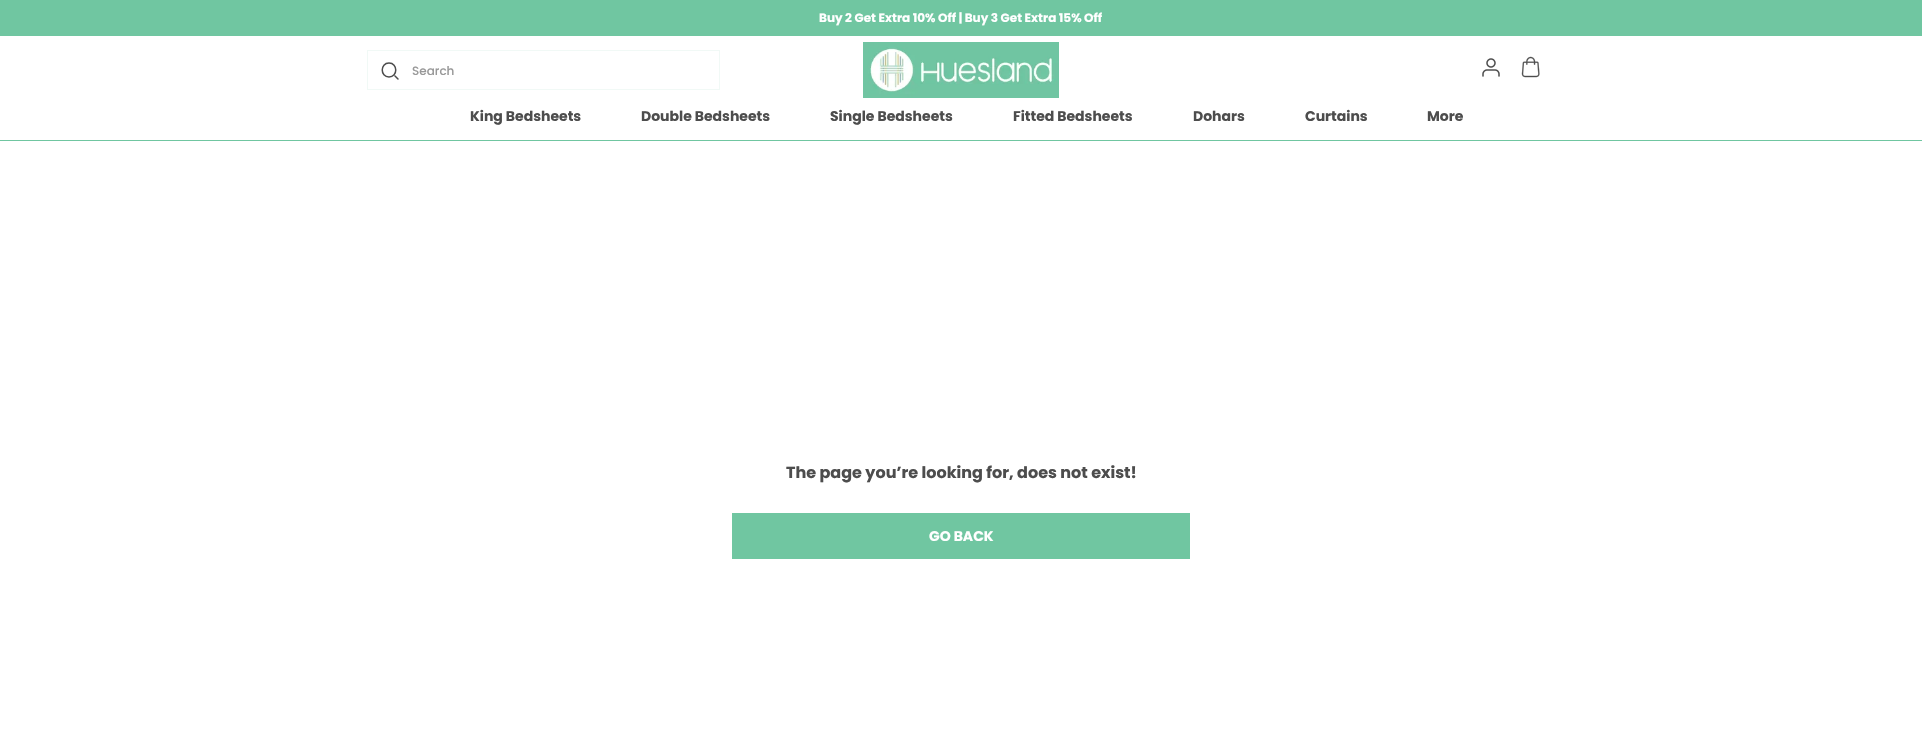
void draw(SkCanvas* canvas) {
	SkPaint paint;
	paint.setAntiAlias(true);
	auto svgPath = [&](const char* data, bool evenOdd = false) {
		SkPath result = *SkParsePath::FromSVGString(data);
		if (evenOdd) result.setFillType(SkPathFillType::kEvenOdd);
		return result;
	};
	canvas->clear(0xffffffff);
	paint.setColor(0xff70c6a1);
	canvas->drawRect(SkRect::MakeXYWH(0, 140, 1922, 1), paint);
	canvas->drawRect(SkRect::MakeXYWH(0, 0, 1922, 36), paint);
	SkFont f1(fontMgr->matchFamilyStyle("Poppins", SkFontStyle::Bold()), 12);
	f1.setSubpixel(true);
	paint.setColor(0xffffffff);
	canvas->drawString("Buy 2 Get Extra 10% Off | Buy 3 Get Extra 15% Off", 819, 22, f1, paint);
	paint.setStroke(true);
	paint.setStrokeWidth(1);
	paint.setColor(0xfff1f9f6);
	canvas->drawRect(SkRect::MakeXYWH(367.5, 50.5, 352, 39), paint);
	paint.setStrokeWidth(1.5);
	paint.setStrokeCap(SkPaint::kRound_Cap);
	paint.setStrokeJoin(SkPaint::kRound_Join);
	paint.setColor(0xff4d4d4d);
	canvas->drawPath(svgPath("M389 77C398 77 398 63 389 63C380 63 380 77 389 77ZM398 79L395 76"), paint);
	SkFont f2(fontMgr->matchFamilyStyle("Poppins", SkFontStyle(500, SkFontStyle::kNormal_Width, SkFontStyle::kUpright_Slant)), 12);
	f2.setSubpixel(true);
	paint.setStroke(false);
	paint.setColor(0xff999999);
	canvas->drawString("Search", 412, 75, f2, paint);
	canvas->drawImageRect(SkImages::DeferredFromEncodedData(SkData::MakeFromFileName("img1.png")), SkRect::MakeXYWH(863, 42, 196, 56), SkSamplingOptions());
	canvas->drawImageRect(SkImages::DeferredFromEncodedData(SkData::MakeFromFileName("img2.png")), SkRect::MakeXYWH(1482, 58, 18, 19), SkSamplingOptions());
	canvas->drawImageRect(SkImages::DeferredFromEncodedData(SkData::MakeFromFileName("img3.png")), SkRect::MakeXYWH(1521, 56, 19, 22), SkSamplingOptions());
	SkFont f3(fontMgr->matchFamilyStyle("Poppins", SkFontStyle::Bold()), 14);
	f3.setSubpixel(true);
	paint.setColor(0xff4d4d4d);
	canvas->drawString("King Bedsheets", 470, 121, f3, paint);
	canvas->drawString("Double Bedsheets", 641, 121, f3, paint);
	canvas->drawString("Single Bedsheets", 830, 121, f3, paint);
	canvas->drawString("Fitted Bedsheets", 1013, 121, f3, paint);
	canvas->drawString("Dohars", 1193, 121, f3, paint);
	canvas->drawString("Curtains", 1305, 121, f3, paint);
	canvas->drawString("More", 1427, 121, f3, paint);
	SkFont f4(fontMgr->matchFamilyStyle("Poppins", SkFontStyle::Bold()), 16);
	f4.setSubpixel(true);
	canvas->drawString("The page you’re looking for, does not exist!", 786, 478, f4, paint);
	paint.setColor(0xff70c6a1);
	canvas->drawRect(SkRect::MakeXYWH(732, 513, 458, 46), paint);
	paint.setColor(0xffffffff);
	canvas->drawString("GO BACK", 929, 541, f3, paint);
}
